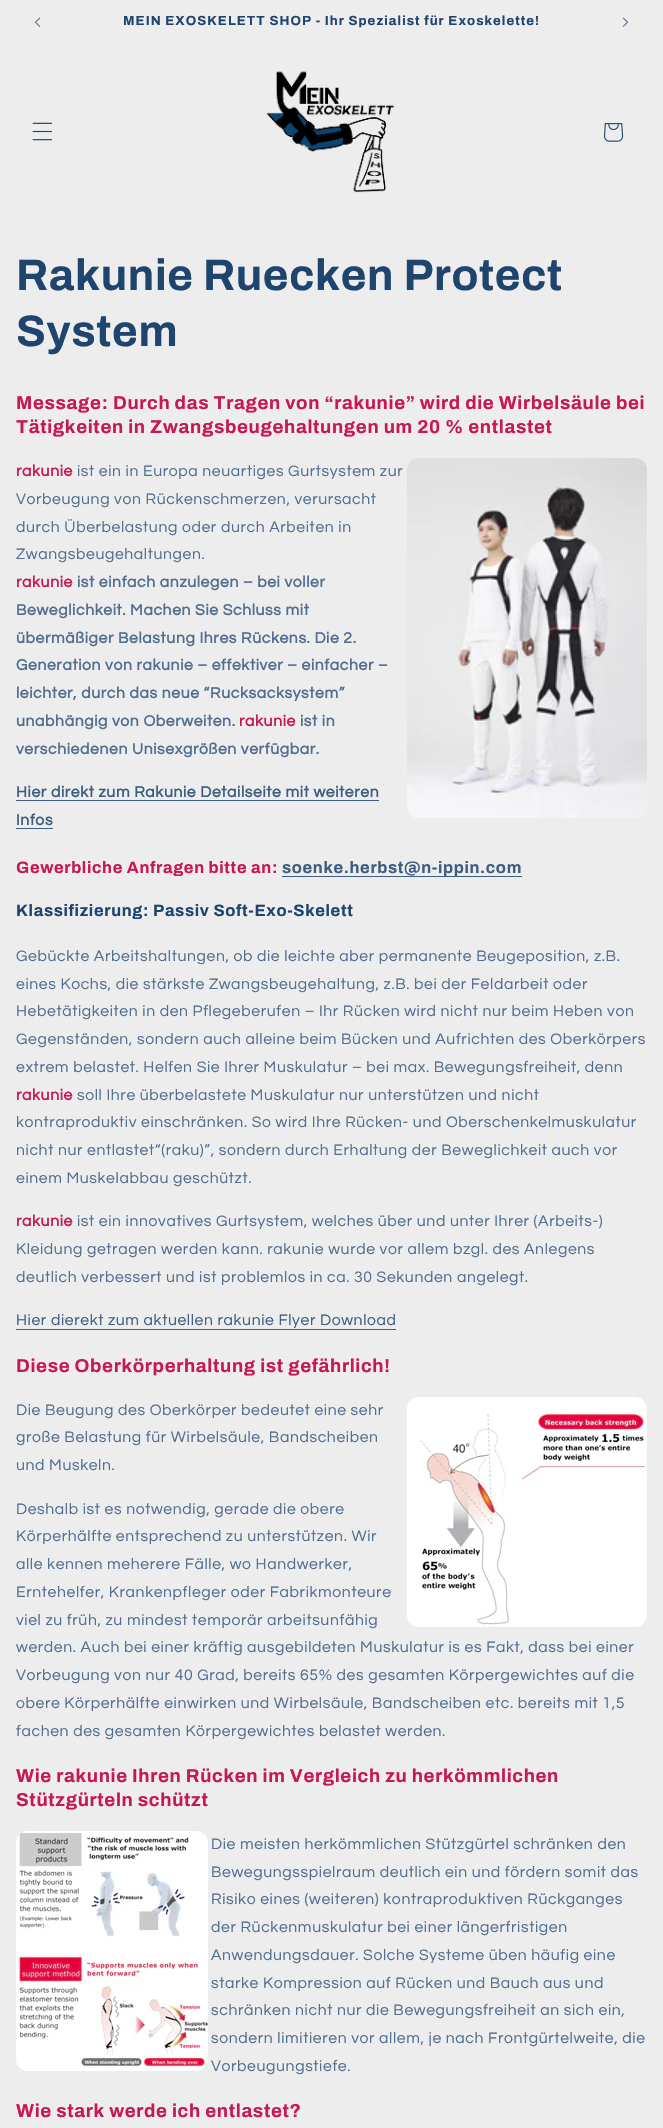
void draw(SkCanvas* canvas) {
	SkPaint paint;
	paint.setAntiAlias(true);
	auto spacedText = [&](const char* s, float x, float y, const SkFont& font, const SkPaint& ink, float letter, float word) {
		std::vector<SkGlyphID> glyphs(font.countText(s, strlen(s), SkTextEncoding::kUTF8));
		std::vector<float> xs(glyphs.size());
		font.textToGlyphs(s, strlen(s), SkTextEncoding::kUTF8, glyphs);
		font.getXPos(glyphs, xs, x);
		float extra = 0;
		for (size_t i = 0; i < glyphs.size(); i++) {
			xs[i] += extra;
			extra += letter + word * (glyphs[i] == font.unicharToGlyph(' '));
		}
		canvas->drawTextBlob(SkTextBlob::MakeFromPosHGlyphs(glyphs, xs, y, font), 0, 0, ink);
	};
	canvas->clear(0xffededed);
	canvas->drawImageRect(SkImages::DeferredFromEncodedData(SkData::MakeFromFileName("img1.png")), SkRect::MakeXYWH(35, 17, 6, 10), SkSamplingOptions());
	SkFont f1(fontMgr->matchFamilyStyle("Archivo", SkFontStyle::Bold()), 13.2);
	f1.setSubpixel(true);
	paint.setColor(0xff1f446e);
	spacedText("MEIN EXOSKELETT SHOP - Ihr Spezialist für Exoskelette!", 123, 25, f1, paint, 1.05, 0);
	canvas->drawImageRect(SkImages::DeferredFromEncodedData(SkData::MakeFromFileName("img2.png")), SkRect::MakeXYWH(622, 17, 6, 10), SkSamplingOptions());
	canvas->drawImageRect(SkImages::DeferredFromEncodedData(SkData::MakeFromFileName("img3.png")), SkRect::MakeXYWH(32, 122, 20, 19), SkSamplingOptions());
	canvas->drawImageRect(SkImages::DeferredFromEncodedData(SkData::MakeFromFileName("img4.png")), SkRect::MakeXYWH(267, 71, 128, 122), SkSamplingOptions());
	canvas->drawImageRect(SkImages::DeferredFromEncodedData(SkData::MakeFromFileName("img5.png")), SkRect::MakeXYWH(604, 123, 20, 19), SkSamplingOptions());
	SkFont f2(fontMgr->matchFamilyStyle("Archivo", SkFontStyle::Bold()), 44);
	f2.setSubpixel(true);
	spacedText("Rakunie Ruecken Protect", 16, 290, f2, paint, 0.65, 0);
	spacedText("System", 16, 346, f2, paint, 0.65, 0);
	SkFont f3(fontMgr->matchFamilyStyle("Archivo", SkFontStyle::Bold()), 18.7);
	f3.setSubpixel(true);
	paint.setColor(0xffc71855);
	spacedText("Message: Durch das Tragen von “rakunie” wird die Wirbelsäule bei", 16, 409, f3, paint, 0.65, 0);
	spacedText("Tätigkeiten in Zwangsbeugehaltungen um 20 % entlastet", 16, 433, f3, paint, 0.65, 0);
	SkFont f4(fontMgr->matchFamilyStyle("Questrial", SkFontStyle::Bold()), 15.75);
	f4.setSubpixel(true);
	spacedText("rakunie", 16, 476, f4, paint, 0.63, 0);
	SkFont f5(fontMgr->matchFamilyStyle("Questrial", SkFontStyle::Normal()), 15.75);
	f5.setSubpixel(true);
	paint.setColor(0xff536e8e);
	spacedText("ist ein in Europa neuartiges Gurtsystem zur", 77, 476, f5, paint, 0.63, 0);
	spacedText("Vorbeugung von Rückenschmerzen, verursacht", 16, 504, f5, paint, 0.63, 0);
	spacedText("durch Überbelastung oder durch Arbeiten in", 16, 532, f5, paint, 0.63, 0);
	spacedText("Zwangsbeugehaltungen.", 16, 559, f5, paint, 0.63, 0);
	paint.setColor(0xffc71855);
	spacedText("rakunie", 16, 587, f4, paint, 0.63, 0);
	paint.setColor(0xff536e8e);
	spacedText("ist einfach anzulegen – bei voller", 77, 587, f4, paint, 0.63, 0);
	spacedText("Beweglichkeit. Machen Sie Schluss mit", 16, 615, f4, paint, 0.63, 0);
	spacedText("übermäßiger Belastung Ihres Rückens. Die 2.", 16, 643, f4, paint, 0.63, 0);
	spacedText("Generation von rakunie – effektiver – einfacher –", 16, 670, f4, paint, 0.63, 0);
	spacedText("leichter, durch das neue “Rucksacksystem”", 16, 698, f4, paint, 0.63, 0);
	spacedText("unabhängig von Oberweiten.", 16, 726, f4, paint, 0.63, 0);
	paint.setColor(0xffc71855);
	spacedText("rakunie", 239, 726, f4, paint, 0.63, 0);
	paint.setColor(0xff536e8e);
	spacedText("ist in", 300, 726, f4, paint, 0.63, 0);
	spacedText("verschiedenen Unisexgrößen verfügbar.", 16, 754, f4, paint, 0.63, 0);
	canvas->drawImageRect(SkImages::DeferredFromEncodedData(SkData::MakeFromFileName("img6.png")), SkRect::MakeXYWH(407, 458, 240, 360), SkSamplingOptions());
	paint.setColor(0xff3e5d81);
	spacedText("Hier direkt zum Rakunie Detailseite mit weiteren", 16, 797, f4, paint, 0.63, 0);
	canvas->drawRect(SkRect::MakeXYWH(16, 800, 363, 1), paint);
	spacedText("Infos", 16, 825, f4, paint, 0.63, 0);
	canvas->drawRect(SkRect::MakeXYWH(16, 828, 37, 1), paint);
	SkFont f6(fontMgr->matchFamilyStyle("Archivo", SkFontStyle::Bold()), 16.5);
	f6.setSubpixel(true);
	paint.setColor(0xffc71855);
	spacedText("Gewerbliche Anfragen bitte an:", 16, 873, f6, paint, 0.65, 0);
	paint.setColor(0xff3e5d81);
	spacedText("soenke.herbst@n-ippin.com", 282, 873, f6, paint, 0.65, 0);
	canvas->drawRect(SkRect::MakeXYWH(282, 876, 240, 1), paint);
	paint.setColor(0xff1f446e);
	spacedText("Klassifizierung: Passiv Soft-Exo-Skelett", 16, 916, f6, paint, 0.65, 0);
	paint.setColor(0xff536e8e);
	spacedText("Gebückte Arbeitshaltungen, ob die leichte aber permanente Beugeposition, z.B.", 16, 961, f5, paint, 0.63, 0);
	spacedText("eines Kochs, die stärkste Zwangsbeugehaltung, z.B. bei der Feldarbeit oder", 16, 989, f5, paint, 0.63, 0);
	spacedText("Hebetätigkeiten in den Pflegeberufen – Ihr Rücken wird nicht nur beim Heben von", 16, 1016, f5, paint, 0.63, 0);
	spacedText("Gegenständen, sondern auch alleine beim Bücken und Aufrichten des Oberkörpers", 16, 1044, f5, paint, 0.63, 0);
	spacedText("extrem belastet. Helfen Sie Ihrer Muskulatur – bei max. Bewegungsfreiheit, denn", 16, 1072, f5, paint, 0.63, 0);
	paint.setColor(0xffc71855);
	spacedText("rakunie", 16, 1100, f4, paint, 0.63, 0);
	paint.setColor(0xff536e8e);
	spacedText("soll Ihre überbelastete Muskulatur nur unterstützen und nicht", 77, 1100, f5, paint, 0.63, 0);
	spacedText("kontraproduktiv einschränken. So wird Ihre Rücken- und Oberschenkelmuskulatur", 16, 1127, f5, paint, 0.63, 0);
	spacedText("nicht nur entlastet“(raku)”, sondern durch Erhaltung der Beweglichkeit auch vor", 16, 1155, f5, paint, 0.63, 0);
	spacedText("einem Muskelabbau geschützt.", 16, 1183, f5, paint, 0.63, 0);
	paint.setColor(0xffc71855);
	spacedText("rakunie", 16, 1226, f4, paint, 0.63, 0);
	paint.setColor(0xff536e8e);
	spacedText("ist ein innovatives Gurtsystem, welches über und unter Ihrer (Arbeits-)", 77, 1226, f5, paint, 0.63, 0);
	spacedText("Kleidung getragen werden kann. rakunie wurde vor allem bzgl. des Anlegens", 16, 1254, f5, paint, 0.63, 0);
	spacedText("deutlich verbessert und ist problemlos in ca. 30 Sekunden angelegt.", 16, 1282, f5, paint, 0.63, 0);
	paint.setColor(0xff3e5d81);
	spacedText("Hier dierekt zum aktuellen rakunie Flyer Download", 16, 1325, f5, paint, 0.63, 0);
	canvas->drawRect(SkRect::MakeXYWH(16, 1329, 380, 1), paint);
	paint.setColor(0xffc71855);
	spacedText("Diese Oberkörperhaltung ist gefährlich!", 16, 1372, f3, paint, 0.65, 0);
	paint.setColor(0xff536e8e);
	spacedText("Die Beugung des Oberkörper bedeutet eine sehr", 16, 1415, f5, paint, 0.63, 0);
	spacedText("große Belastung für Wirbelsäule, Bandscheiben", 16, 1442, f5, paint, 0.63, 0);
	spacedText("und Muskeln.", 16, 1470, f5, paint, 0.63, 0);
	canvas->drawImageRect(SkImages::DeferredFromEncodedData(SkData::MakeFromFileName("img7.png")), SkRect::MakeXYWH(407, 1397, 240, 230), SkSamplingOptions());
	spacedText("Deshalb ist es notwendig, gerade die obere", 16, 1514, f5, paint, 0.63, 0);
	spacedText("Körperhälfte entsprechend zu unterstützen. Wir", 16, 1541, f5, paint, 0.63, 0);
	spacedText("alle kennen meherere Fälle, wo Handwerker,", 16, 1569, f5, paint, 0.63, 0);
	spacedText("Erntehelfer, Krankenpfleger oder Fabrikmonteure", 16, 1597, f5, paint, 0.63, 0);
	spacedText("viel zu früh, zu mindest temporär arbeitsunfähig", 16, 1625, f5, paint, 0.63, 0);
	spacedText("werden. Auch bei einer kräftig ausgebildeten Muskulatur is es Fakt, dass bei einer", 16, 1652, f5, paint, 0.63, 0);
	spacedText("Vorbeugung von nur 40 Grad, bereits 65% des gesamten Körpergewichtes auf die", 16, 1680, f5, paint, 0.63, 0);
	spacedText("obere Körperhälfte einwirken und Wirbelsäule, Bandscheiben etc. bereits mit 1,5", 16, 1708, f5, paint, 0.63, 0);
	spacedText("fachen des gesamten Körpergewichtes belastet werden.", 16, 1736, f5, paint, 0.63, 0);
	paint.setColor(0xffc71855);
	spacedText("Wie rakunie Ihren Rücken im Vergleich zu herkömmlichen", 16, 1782, f3, paint, 0.65, 0);
	spacedText("Stützgürteln schützt", 16, 1806, f3, paint, 0.65, 0);
	canvas->drawImageRect(SkImages::DeferredFromEncodedData(SkData::MakeFromFileName("img8.png")), SkRect::MakeXYWH(16, 1831, 192, 240), SkSamplingOptions());
	paint.setColor(0xff536e8e);
	spacedText("Die meisten herkömmlichen Stützgürtel schränken den", 211, 1849, f5, paint, 0.63, 0);
	spacedText("Bewegungsspielraum deutlich ein und fördern somit das", 211, 1877, f5, paint, 0.63, 0);
	spacedText("Risiko eines (weiteren) kontraproduktiven Rückganges", 211, 1904, f5, paint, 0.63, 0);
	spacedText("der Rückenmuskulatur bei einer längerfristigen", 211, 1932, f5, paint, 0.63, 0);
	spacedText("Anwendungsdauer. Solche Systeme üben häufig eine", 211, 1960, f5, paint, 0.63, 0);
	spacedText("starke Kompression auf Rücken und Bauch aus und", 211, 1988, f5, paint, 0.63, 0);
	spacedText("schränken nicht nur die Bewegungsfreiheit an sich ein,", 211, 2015, f5, paint, 0.63, 0);
	spacedText("sondern limitieren vor allem, je nach Frontgürtelweite, die", 211, 2043, f5, paint, 0.63, 0);
	spacedText("Vorbeugungstiefe.", 211, 2071, f5, paint, 0.63, 0);
	paint.setColor(0xffc71855);
	spacedText("Wie stark werde ich entlastet?", 16, 2117, f3, paint, 0.65, 0);
}
